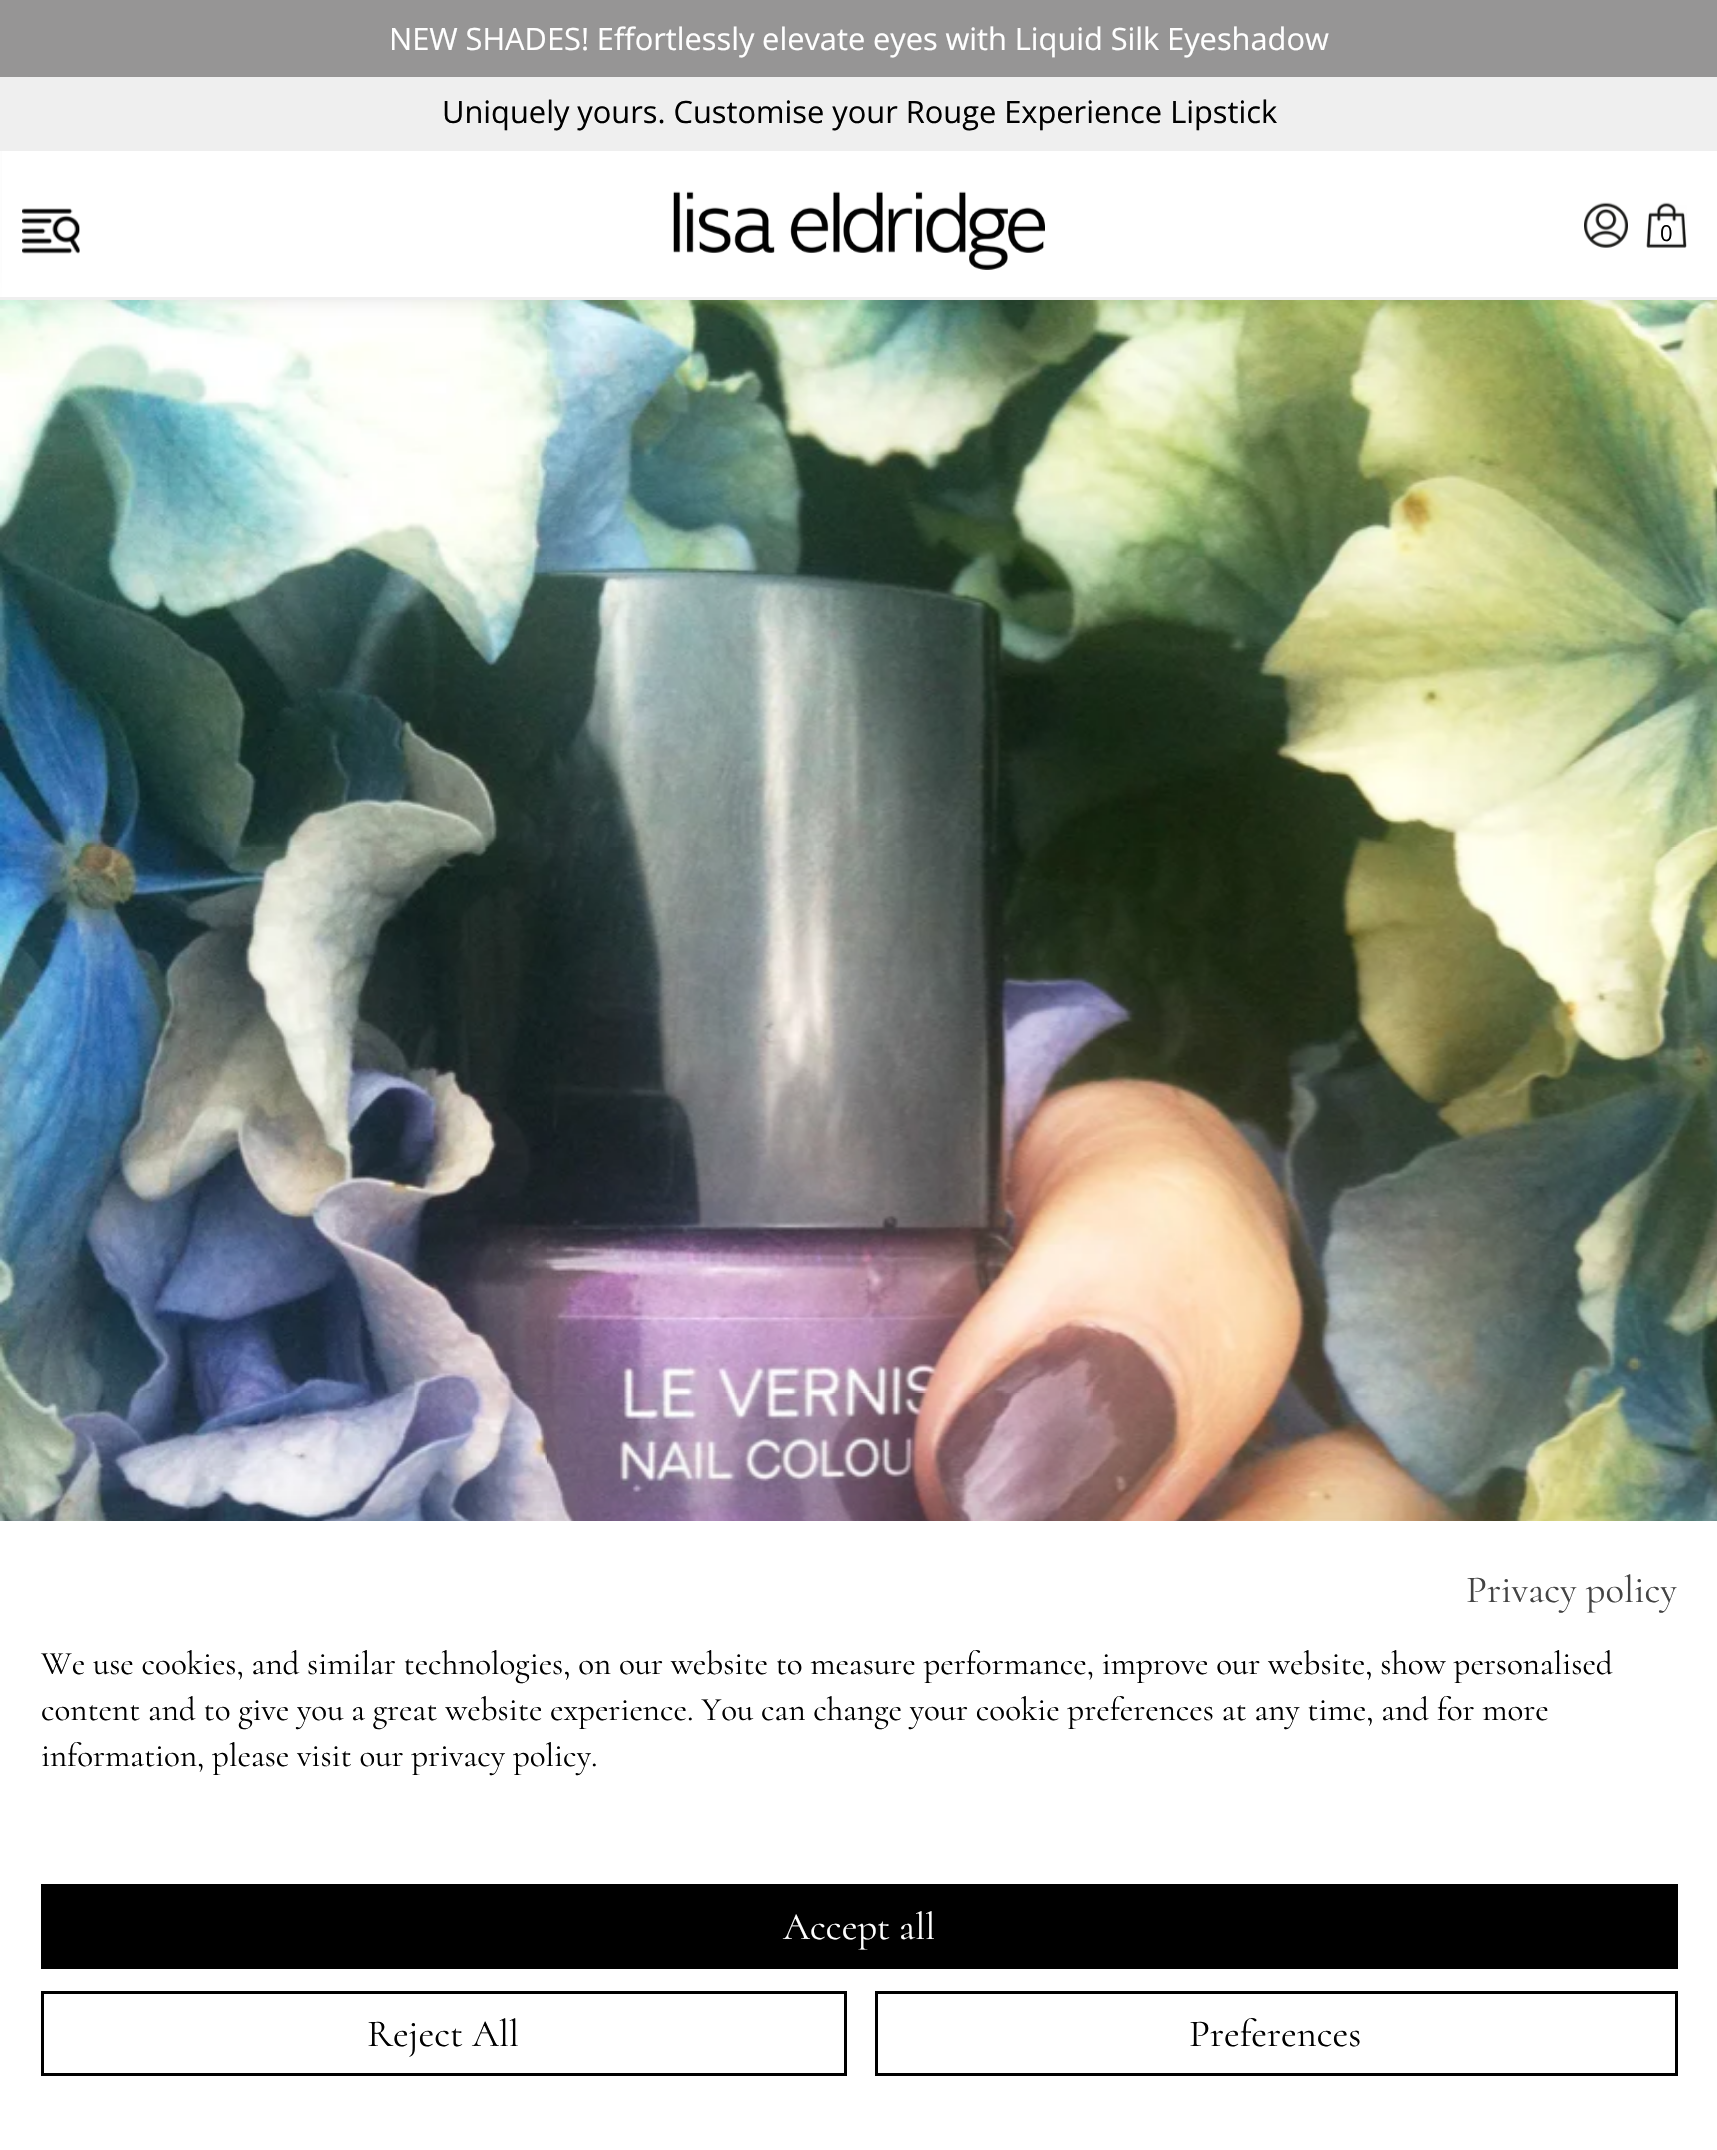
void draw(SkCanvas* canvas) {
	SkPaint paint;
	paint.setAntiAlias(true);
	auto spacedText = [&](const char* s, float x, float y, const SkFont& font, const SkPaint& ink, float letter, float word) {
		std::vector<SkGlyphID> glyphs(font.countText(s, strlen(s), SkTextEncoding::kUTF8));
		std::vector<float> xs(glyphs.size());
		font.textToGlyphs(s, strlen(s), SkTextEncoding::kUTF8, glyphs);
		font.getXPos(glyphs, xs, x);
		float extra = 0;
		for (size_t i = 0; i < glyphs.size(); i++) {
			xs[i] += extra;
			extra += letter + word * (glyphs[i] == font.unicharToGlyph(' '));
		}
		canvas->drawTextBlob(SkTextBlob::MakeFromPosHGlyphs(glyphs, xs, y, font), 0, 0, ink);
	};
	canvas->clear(0xffffffff);
	paint.setColor(0xff969595);
	canvas->drawRect(SkRect::MakeXYWH(0, 0, 1717, 77), paint);
	SkFont f1(fontMgr->matchFamilyStyle("Open Sans", SkFontStyle::Normal()), 30.8);
	f1.setSubpixel(true);
	paint.setColor(0xffffffff);
	spacedText("NEW SHADES! Effortlessly elevate eyes with Liquid Silk Eyeshadow", 389, 50, f1, paint, 0, -0.25);
	canvas->drawImageRect(SkImages::DeferredFromEncodedData(SkData::MakeFromFileName("img5.png")), SkRect::MakeXYWH(0, 300, 1717, 1221), SkSamplingOptions());
	paint.setColor(0x4d000000);
	paint.setMaskFilter(SkMaskFilter::MakeBlur(kNormal_SkBlurStyle, 14));
	canvas->drawRect(SkRect::MakeXYWH(28, 118, 1663, 168), paint);
	paint.setMaskFilter(nullptr);
	paint.setColor(0xffffffff);
	canvas->drawRect(SkRect::MakeXYWH(2, 151, 1715, 146), paint);
	paint.setColor(0xffefefef);
	canvas->drawRect(SkRect::MakeXYWH(0, 297, 1717, 3), paint);
	canvas->drawRect(SkRect::MakeXYWH(0, 77, 1717, 74), paint);
	paint.setColor(0xff000000);
	canvas->drawString("Uniquely yours. Customise your Rouge Experience Lipstick", 442, 123, f1, paint);
	canvas->drawImageRect(SkImages::DeferredFromEncodedData(SkData::MakeFromFileName("img1.png")), SkRect::MakeXYWH(22, 208, 58, 46), SkSamplingOptions());
	canvas->drawImageRect(SkImages::DeferredFromEncodedData(SkData::MakeFromFileName("img2.png")), SkRect::MakeXYWH(673, 191, 372, 79), SkSamplingOptions());
	canvas->drawImageRect(SkImages::DeferredFromEncodedData(SkData::MakeFromFileName("img3.png")), SkRect::MakeXYWH(1584, 202, 44, 46), SkSamplingOptions());
	canvas->drawImageRect(SkImages::DeferredFromEncodedData(SkData::MakeFromFileName("img4.png")), SkRect::MakeXYWH(1646, 202, 41, 46), SkSamplingOptions());
	SkFont f2(fontMgr->matchFamilyStyle("Open Sans", SkFontStyle::Normal()), 22);
	f2.setSubpixel(true);
	canvas->drawString("0", 1660, 241, f2, paint);
	paint.setColor(0x1a000000);
	paint.setMaskFilter(SkMaskFilter::MakeBlur(kNormal_SkBlurStyle, 33));
	canvas->drawRect(SkRect::MakeXYWH(0, 1521, 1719, 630), paint);
	paint.setMaskFilter(nullptr);
	paint.setColor(0xffffffff);
	canvas->drawRect(SkRect::MakeXYWH(0, 1521, 1717, 629), paint);
	SkFont f3(fontMgr->matchFamilyStyle("Cormorant", SkFontStyle::Normal()), 38.5);
	f3.setSubpixel(true);
	paint.setColor(0xff444444);
	canvas->drawString("Privacy policy", 1466, 1602, f3, paint);
	SkFont f4(fontMgr->matchFamilyStyle("Cormorant", SkFontStyle::Normal()), 33);
	f4.setSubpixel(true);
	paint.setColor(0xff000000);
	canvas->drawString("We use cookies, and similar technologies, on our website to measure performance, improve our website, show personalised", 41, 1674, f4, paint);
	canvas->drawString("content and to give you a great website experience. You can change your cookie preferences at any time, and for more", 41, 1720, f4, paint);
	canvas->drawString("information, please visit our privacy policy.", 41, 1766, f4, paint);
	canvas->drawRect(SkRect::MakeXYWH(41, 1884, 1637, 85), paint);
	paint.setColor(0xffffffff);
	canvas->drawString("Accept all", 783, 1939, f3, paint);
	paint.setStroke(true);
	paint.setStrokeWidth(3);
	paint.setColor(0xff000000);
	canvas->drawRect(SkRect::MakeXYWH(42.5, 1992.5, 803, 82), paint);
	paint.setStroke(false);
	canvas->drawString("Reject All", 367, 2046, f3, paint);
	paint.setStroke(true);
	canvas->drawRect(SkRect::MakeXYWH(876.5, 1992.5, 800, 82), paint);
	paint.setStroke(false);
	canvas->drawString("Preferences", 1189, 2046, f3, paint);
}
